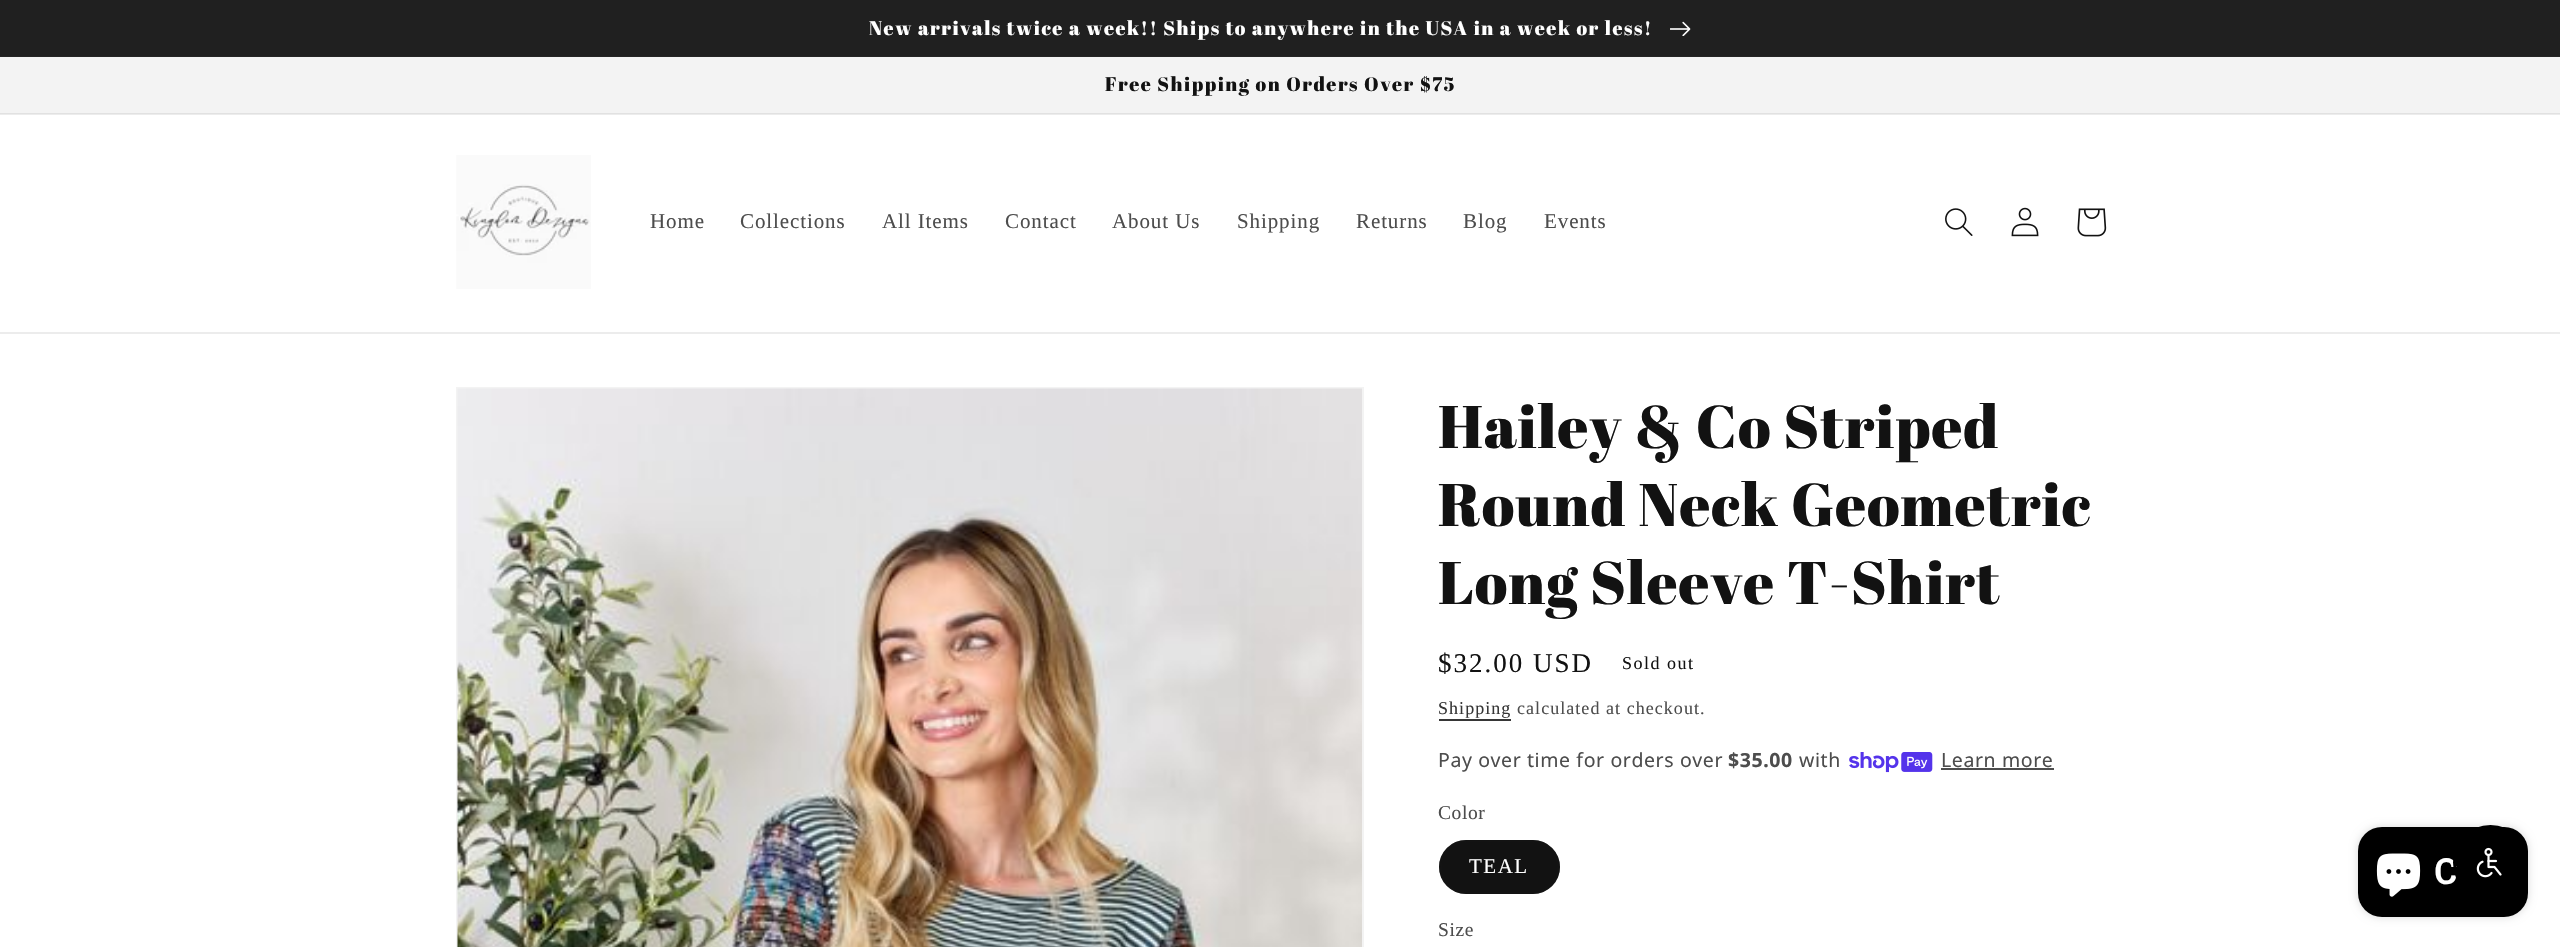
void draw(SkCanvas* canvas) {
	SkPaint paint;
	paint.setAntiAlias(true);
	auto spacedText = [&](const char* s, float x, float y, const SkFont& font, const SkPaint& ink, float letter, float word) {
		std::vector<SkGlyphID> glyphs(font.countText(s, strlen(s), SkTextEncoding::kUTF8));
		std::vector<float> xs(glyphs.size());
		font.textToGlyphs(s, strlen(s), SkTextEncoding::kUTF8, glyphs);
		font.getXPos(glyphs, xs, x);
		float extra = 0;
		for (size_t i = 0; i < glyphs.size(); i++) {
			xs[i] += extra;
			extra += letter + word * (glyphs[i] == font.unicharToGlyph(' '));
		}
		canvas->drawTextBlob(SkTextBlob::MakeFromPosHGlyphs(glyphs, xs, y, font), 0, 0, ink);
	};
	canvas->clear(0xffffffff);
	paint.setColor(0xffececec);
	canvas->drawRect(SkRect::MakeXYWH(0, 114, 2560, 1), paint);
	paint.setColor(0xff252525);
	canvas->drawRect(SkRect::MakeXYWH(0, 56, 2560, 1), paint);
	paint.setColor(0xff202020);
	canvas->drawRect(SkRect::MakeXYWH(0, 0, 2560, 56), paint);
	SkFont f1(fontMgr->matchFamilyStyle("Abril Fatface", SkFontStyle::Normal()), 19.5);
	f1.setSubpixel(true);
	paint.setColor(0xffffffff);
	spacedText("New arrivals twice a week!! Ships to anywhere in the USA in a week or less!", 869, 35, f1, paint, 1.5, 0);
	canvas->drawImageRect(SkImages::DeferredFromEncodedData(SkData::MakeFromFileName("img1.png")), SkRect::MakeXYWH(1670, 21, 21, 15), SkSamplingOptions());
	paint.setColor(0xfff3f3f3);
	canvas->drawRect(SkRect::MakeXYWH(0, 57, 2560, 56), paint);
	paint.setColor(0xffe1e1e1);
	canvas->drawRect(SkRect::MakeXYWH(0, 113, 2560, 1), paint);
	paint.setColor(0xff121212);
	spacedText("Free Shipping on Orders Over $75", 1105, 91, f1, paint, 1.5, 0);
	paint.setColor(0xffececec);
	canvas->drawRect(SkRect::MakeXYWH(0, 332, 2560, 2), paint);
	canvas->drawImageRect(SkImages::DeferredFromEncodedData(SkData::MakeFromFileName("img2.png")), SkRect::MakeXYWH(456, 155, 135, 134), SkSamplingOptions());
	SkFont f2(fontMgr->matchFamilyStyle("Liberation Serif", SkFontStyle::Normal()), 21);
	f2.setSubpixel(true);
	paint.setColor(0xff4d4d4d);
	spacedText("Home", 650, 228, f2, paint, 0.9, 0);
	spacedText("Collections", 740, 228, f2, paint, 0.9, 0);
	spacedText("All Items", 882, 228, f2, paint, 0.9, 0);
	spacedText("Contact", 1005, 228, f2, paint, 0.9, 0);
	spacedText("About Us", 1112, 228, f2, paint, 0.9, 0);
	spacedText("Shipping", 1237, 228, f2, paint, 0.9, 0);
	spacedText("Returns", 1356, 228, f2, paint, 0.9, 0);
	spacedText("Blog", 1463, 228, f2, paint, 0.9, 0);
	spacedText("Events", 1544, 228, f2, paint, 0.9, 0);
	canvas->drawImageRect(SkImages::DeferredFromEncodedData(SkData::MakeFromFileName("img3.png")), SkRect::MakeXYWH(1945, 208, 28, 28), SkSamplingOptions());
	canvas->drawImageRect(SkImages::DeferredFromEncodedData(SkData::MakeFromFileName("img4.png")), SkRect::MakeXYWH(2011, 207, 28, 30), SkSamplingOptions());
	canvas->drawImageRect(SkImages::DeferredFromEncodedData(SkData::MakeFromFileName("img5.png")), SkRect::MakeXYWH(2077, 208, 30, 29), SkSamplingOptions());
	paint.setStroke(true);
	paint.setStrokeWidth(2);
	paint.setColor(0xfff3f3f3);
	canvas->drawRect(SkRect::MakeXYWH(457, 388, 906, 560), paint);
	canvas->drawImageRect(SkImages::DeferredFromEncodedData(SkData::MakeFromFileName("img6.png")), SkRect::MakeXYWH(457, 388, 905, 559), SkSamplingOptions());
	SkFont f3(fontMgr->matchFamilyStyle("Abril Fatface", SkFontStyle::Normal()), 60);
	f3.setSubpixel(true);
	paint.setStroke(false);
	paint.setColor(0xff121212);
	spacedText("Hailey & Co Striped", 1438, 448, f3, paint, 0.9, 0);
	spacedText("Round Neck Geometric", 1438, 526, f3, paint, 0.9, 0);
	spacedText("Long Sleeve T-Shirt", 1438, 604, f3, paint, 0.9, 0);
	SkFont f4(fontMgr->matchFamilyStyle("Liberation Serif", SkFontStyle::Normal()), 27);
	f4.setSubpixel(true);
	spacedText("$32.00 USD", 1438, 672, f4, paint, 2, 0);
	SkFont f5(fontMgr->matchFamilyStyle("Liberation Serif", SkFontStyle::Normal()), 18);
	f5.setSubpixel(true);
	spacedText("Sold out", 1622, 669, f5, paint, 1.5, 0);
	paint.setColor(0xff363636);
	spacedText("Shipping", 1438, 714, f5, paint, 1.05, 0);
	canvas->drawRect(SkRect::MakeXYWH(1439, 719, 72, 2), paint);
	paint.setColor(0xff4d4d4d);
	spacedText("calculated at checkout.", 1517, 714, f5, paint, 1.05, 0);
	SkFont f6(fontMgr->matchFamilyStyle("Noto Sans", SkFontStyle::Normal()), 19.5);
	f6.setSubpixel(true);
	spacedText("Pay over time for orders over", 1438, 767, f6, paint, 0.6, 0);
	SkFont f7(fontMgr->matchFamilyStyle("Noto Sans", SkFontStyle::Bold()), 19.5);
	f7.setSubpixel(true);
	spacedText("$35.00", 1728, 767, f7, paint, 0.6, 0);
	spacedText("with", 1799, 767, f6, paint, 0.6, 0);
	canvas->drawImageRect(SkImages::DeferredFromEncodedData(SkData::MakeFromFileName("img7.png")), SkRect::MakeXYWH(1849, 752, 84, 21), SkSamplingOptions());
	spacedText("Learn more", 1941, 767, f6, paint, 0.6, 0);
	canvas->drawRect(SkRect::MakeXYWH(1941, 768, 113, 2), paint);
	SkFont f8(fontMgr->matchFamilyStyle("Liberation Serif", SkFontStyle::Normal()), 19.5);
	f8.setSubpixel(true);
	spacedText("Color", 1438, 819, f8, paint, 0.6, 0);
	paint.setColor(0xff121212);
	canvas->drawRoundRect(SkRect::MakeXYWH(1439, 840, 121, 54), 27, 27, paint);
	paint.setStroke(true);
	paint.setColor(0x8c121212);
	canvas->drawRoundRect(SkRect::MakeXYWH(1440, 841, 119, 52), 26, 26, paint);
	paint.setStroke(false);
	paint.setColor(0xffffffff);
	spacedText("TEAL", 1469, 873, f2, paint, 1.5, 0);
	paint.setColor(0xff4d4d4d);
	spacedText("Size", 1438, 936, f8, paint, 0.6, 0);
	paint.setColor(0x26000000);
	paint.setMaskFilter(SkMaskFilter::MakeBlur(kNormal_SkBlurStyle, 4));
	canvas->drawRoundRect(SkRect::MakeXYWH(2358, 827, 170, 90), 24, 24, paint);
	paint.setMaskFilter(nullptr);
	paint.setColor(0xff000000);
	canvas->drawRoundRect(SkRect::MakeXYWH(2358, 827, 170, 90), 24, 24, paint);
	canvas->drawImageRect(SkImages::DeferredFromEncodedData(SkData::MakeFromFileName("img8.png")), SkRect::MakeXYWH(2376, 853, 45, 44), SkSamplingOptions());
	SkFont f9(fontMgr->matchFamilyStyle("Roboto", SkFontStyle(600, SkFontStyle::kNormal_Width, SkFontStyle::kUpright_Slant)), 36);
	f9.setSubpixel(true);
	paint.setColor(0xffffffff);
	canvas->drawString("C", 2434, 884, f9, paint);
	paint.setStroke(true);
	paint.setStrokeWidth(3);
	paint.setColor(0xff000000);
	canvas->drawCircle(2490.5, 862.5, 36, paint);
	canvas->drawImageRect(SkImages::DeferredFromEncodedData(SkData::MakeFromFileName("img9.png")), SkRect::MakeXYWH(2476, 847, 26, 31), SkSamplingOptions());
}
